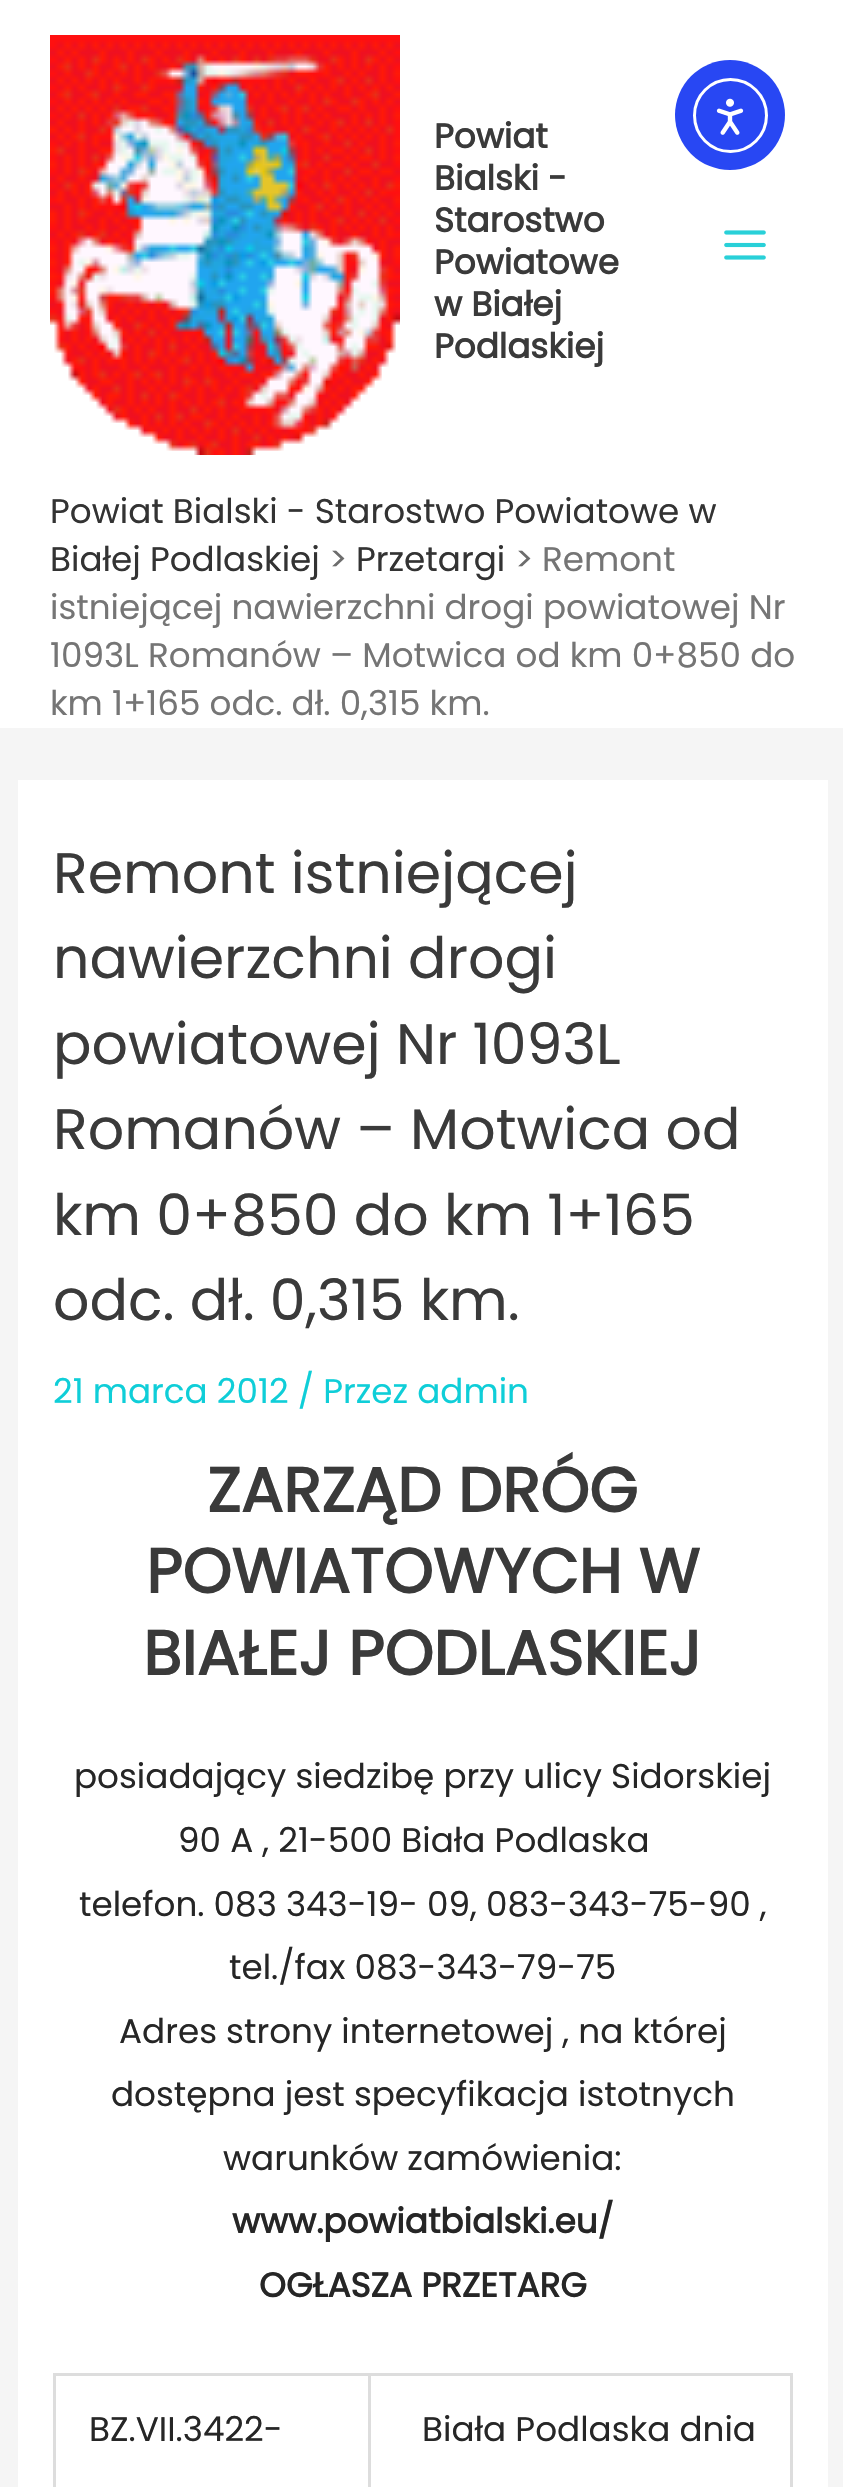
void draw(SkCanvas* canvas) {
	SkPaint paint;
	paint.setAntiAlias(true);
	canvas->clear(0xfff5f5f5);
	paint.setColor(0xffffffff);
	canvas->drawRect(SkRect::MakeXYWH(0, 0, 843, 728), paint);
	paint.setColor(0xff2847f3);
	canvas->drawCircle(730, 115, 55, paint);
	paint.setStroke(true);
	paint.setStrokeWidth(3);
	paint.setColor(0xffffffff);
	canvas->drawCircle(730.5, 115.5, 36, paint);
	canvas->drawImageRect(SkImages::DeferredFromEncodedData(SkData::MakeFromFileName("img1.png")), SkRect::MakeXYWH(716, 98, 28, 37), SkSamplingOptions());
	canvas->drawImageRect(SkImages::DeferredFromEncodedData(SkData::MakeFromFileName("img2.png")), SkRect::MakeXYWH(50, 35, 350, 420), SkSamplingOptions());
	SkFont f1(fontMgr->matchFamilyStyle("Poppins", SkFontStyle::Bold()), 34.2);
	f1.setSubpixel(true);
	paint.setStroke(false);
	paint.setColor(0xff3a3a3a);
	canvas->drawString("Powiat", 434, 148, f1, paint);
	canvas->drawString("Bialski -", 434, 190, f1, paint);
	canvas->drawString("Starostwo", 434, 232, f1, paint);
	canvas->drawString("Powiatowe", 434, 274, f1, paint);
	canvas->drawString("w Białej", 434, 316, f1, paint);
	canvas->drawString("Podlaskiej", 434, 358, f1, paint);
	canvas->drawImageRect(SkImages::DeferredFromEncodedData(SkData::MakeFromFileName("img3.png")), SkRect::MakeXYWH(724, 230, 42, 30), SkSamplingOptions());
	SkFont f2(fontMgr->matchFamilyStyle("Poppins", SkFontStyle::Normal()), 34.2);
	f2.setSubpixel(true);
	paint.setColor(0xff333333);
	canvas->drawString("Powiat Bialski - Starostwo Powiatowe w", 50, 523, f2, paint);
	canvas->drawString("Białej Podlaskiej", 50, 571, f2, paint);
	paint.setColor(0xff6d6d6d);
	canvas->drawString(">", 329, 571, f2, paint);
	paint.setColor(0xff333333);
	canvas->drawString("Przetargi", 356, 571, f2, paint);
	paint.setColor(0xff6d6d6d);
	canvas->drawString(">", 515, 571, f2, paint);
	paint.setColor(0xff757575);
	canvas->drawString("Remont", 542, 571, f2, paint);
	canvas->drawString("istniejącej nawierzchni drogi powiatowej Nr", 50, 619, f2, paint);
	canvas->drawString("1093L Romanów – Motwica od km 0+850 do", 50, 667, f2, paint);
	canvas->drawString("km 1+165 odc. dł. 0,315 km.", 50, 715, f2, paint);
	paint.setColor(0xffffffff);
	canvas->drawRect(SkRect::MakeXYWH(18, 780, 810, 1707), paint);
	SkFont f3(fontMgr->matchFamilyStyle("Poppins", SkFontStyle::Normal()), 57);
	f3.setSubpixel(true);
	paint.setColor(0xff3a3a3a);
	canvas->drawString("Remont istniejącej", 53, 893, f3, paint);
	canvas->drawString("nawierzchni drogi", 53, 978, f3, paint);
	canvas->drawString("powiatowej Nr 1093L", 53, 1064, f3, paint);
	canvas->drawString("Romanów – Motwica od", 53, 1149, f3, paint);
	canvas->drawString("km 0+850 do km 1+165", 53, 1235, f3, paint);
	canvas->drawString("odc. dł. 0,315 km.", 53, 1320, f3, paint);
	paint.setColor(0xff0fced8);
	canvas->drawString("21 marca 2012 / Przez admin", 53, 1403, f2, paint);
	SkFont f4(fontMgr->matchFamilyStyle("Poppins", SkFontStyle::Bold()), 62.5);
	f4.setSubpixel(true);
	paint.setColor(0xff3a3a3a);
	canvas->drawString("ZARZĄD DRÓG", 207, 1512, f4, paint);
	canvas->drawString("POWIATOWYCH W", 146, 1593, f4, paint);
	canvas->drawString("BIAŁEJ PODLASKIEJ", 143, 1675, f4, paint);
	paint.setColor(0xff262626);
	canvas->drawString("posiadający siedzibę przy ulicy Sidorskiej", 74, 1788, f2, paint);
	canvas->drawString("90 A , 21-500 Biała Podlaska", 178, 1852, f2, paint);
	canvas->drawString("telefon. 083 343-19- 09, 083-343-75-90 ,", 79, 1916, f2, paint);
	canvas->drawString("tel./fax 083-343-79-75", 229, 1979, f2, paint);
	canvas->drawString("Adres strony internetowej , na której", 119, 2043, f2, paint);
	canvas->drawString("dostępna jest specyfikacja istotnych", 111, 2106, f2, paint);
	canvas->drawString("warunków zamówienia:", 223, 2170, f2, paint);
	canvas->drawString("www.powiatbialski.eu/", 232, 2233, f1, paint);
	canvas->drawString("OGŁASZA PRZETARG", 259, 2297, f1, paint);
	paint.setColor(0xffdddddd);
	canvas->drawRect(SkRect::MakeXYWH(53, 2373, 740, 3), paint);
	canvas->drawRect(SkRect::MakeXYWH(53, 2373, 3, 114), paint);
	canvas->drawRect(SkRect::MakeXYWH(368, 2375, 3, 112), paint);
	paint.setColor(0xff262626);
	canvas->drawString("BZ.VII.3422-", 89, 2441, f2, paint);
	paint.setColor(0xffdddddd);
	canvas->drawRect(SkRect::MakeXYWH(790, 2375, 3, 112), paint);
	paint.setColor(0xff262626);
	canvas->drawString("Biała Podlaska dnia", 422, 2441, f2, paint);
}
